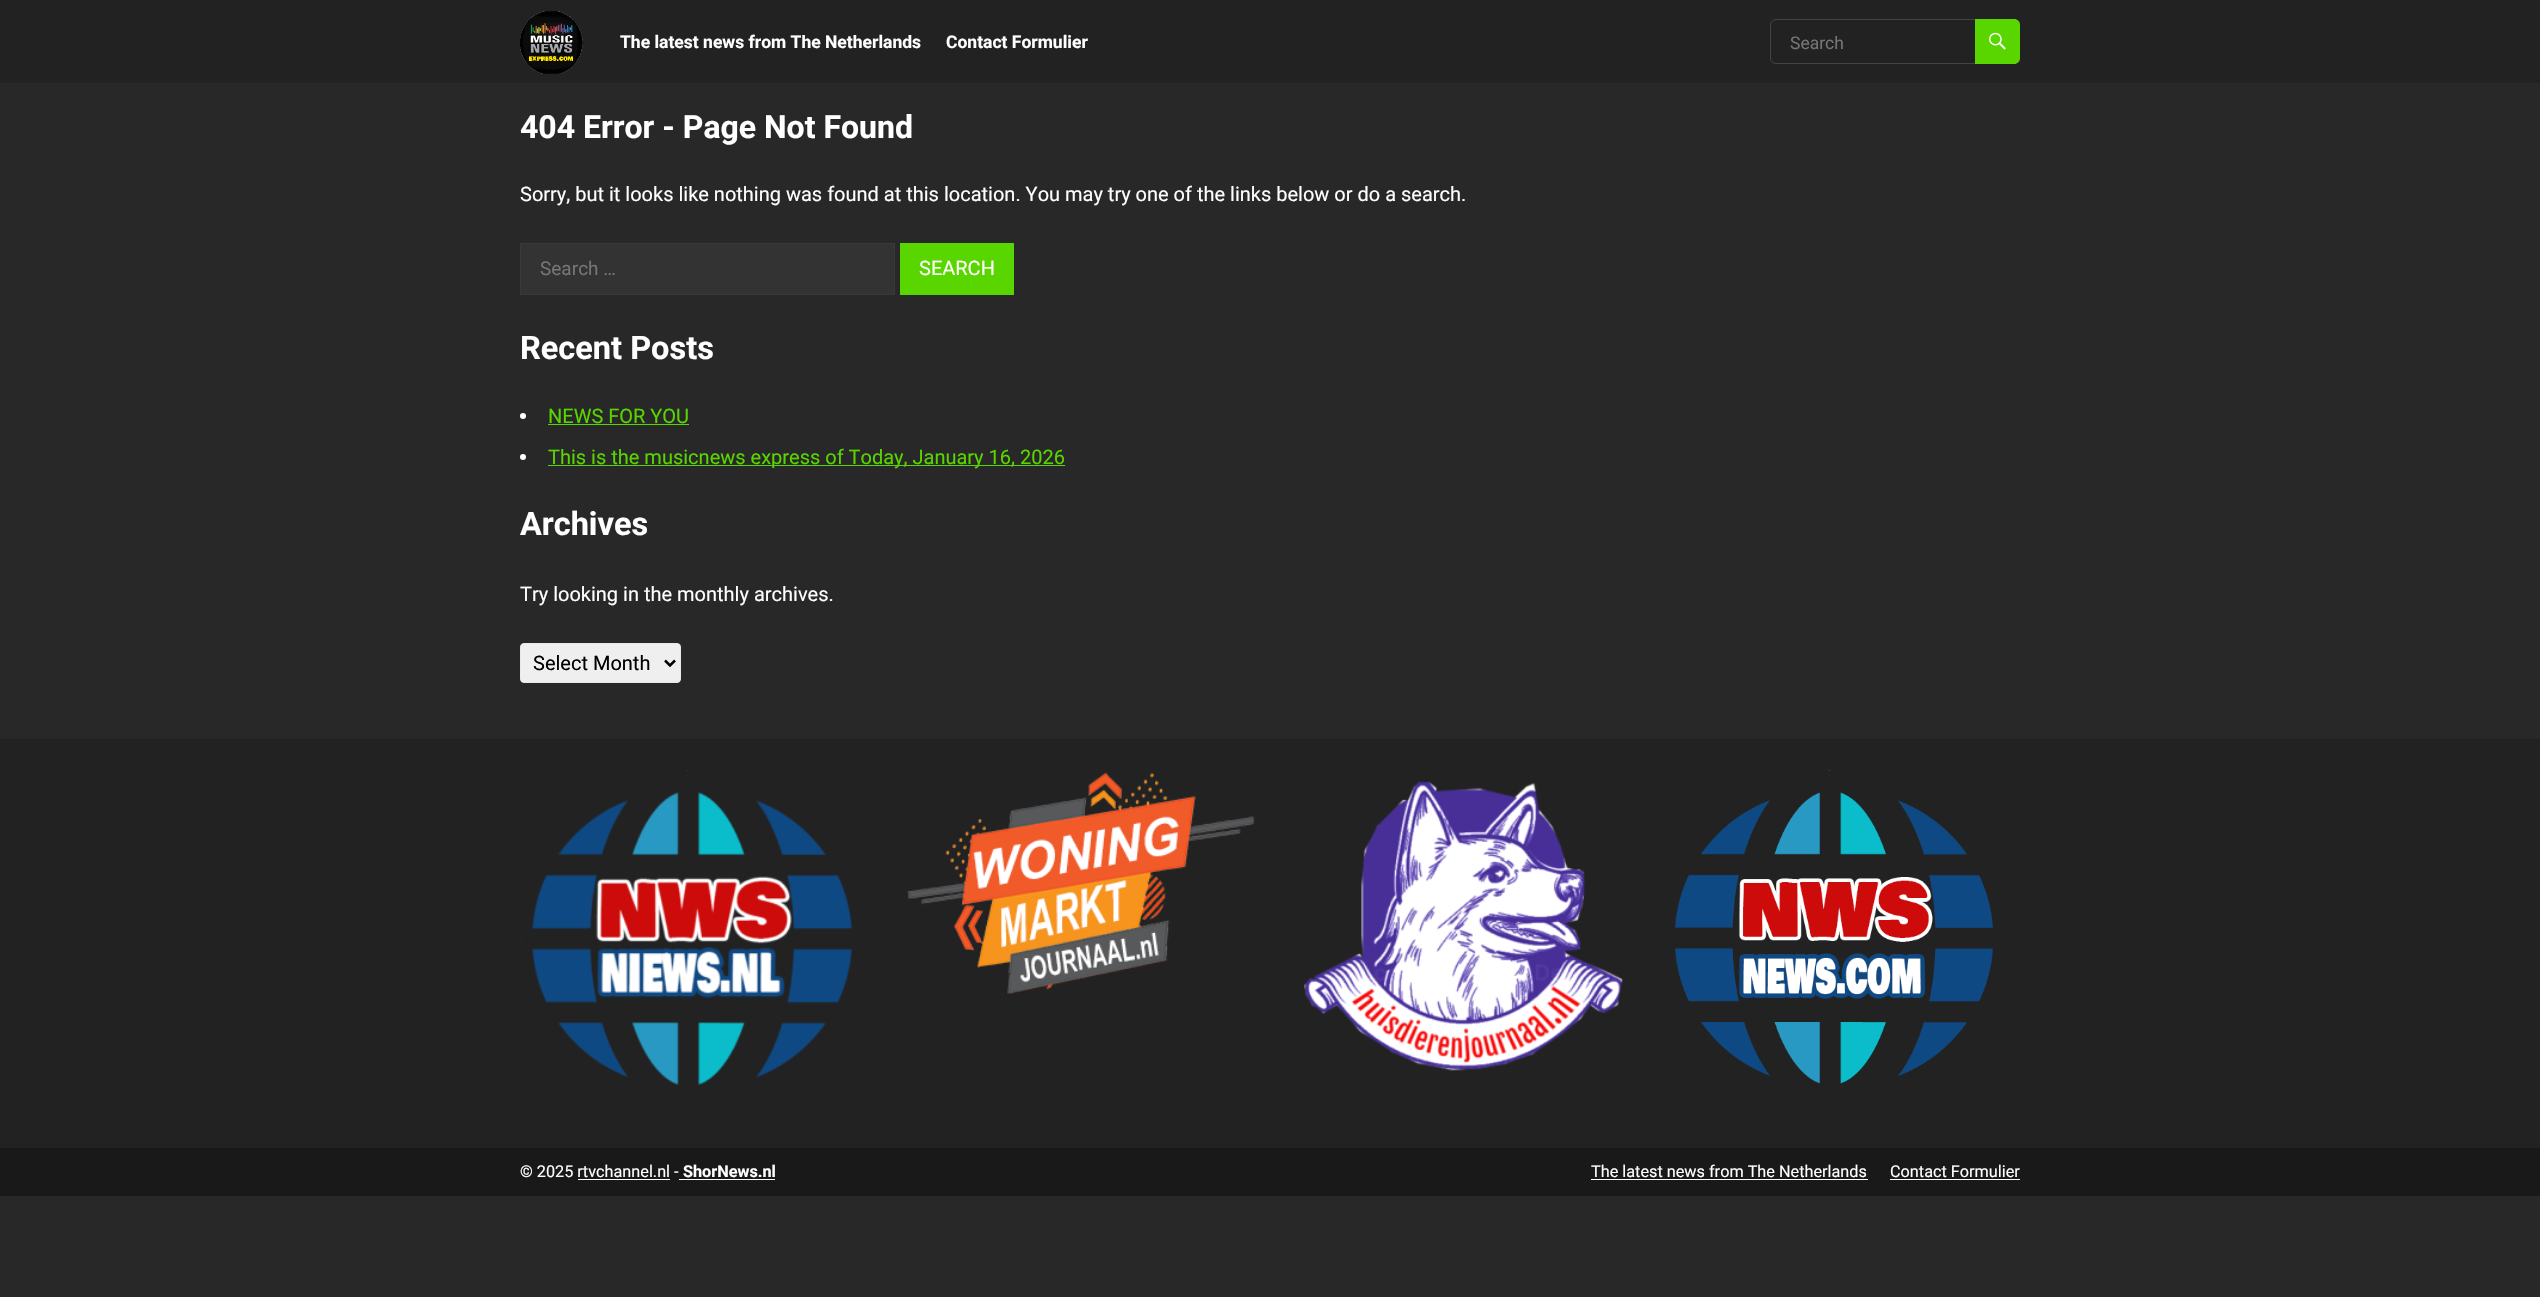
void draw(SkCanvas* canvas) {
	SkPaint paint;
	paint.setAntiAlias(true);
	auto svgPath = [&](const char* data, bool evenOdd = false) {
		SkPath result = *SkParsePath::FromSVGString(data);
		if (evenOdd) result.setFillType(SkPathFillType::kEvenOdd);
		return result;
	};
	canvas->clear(0xff282828);
	paint.setColor(0xff222222);
	canvas->drawRect(SkRect::MakeXYWH(0, 0, 2540, 83), paint);
	canvas->drawImageRect(SkImages::DeferredFromEncodedData(SkData::MakeFromFileName("img1.png")), SkRect::MakeXYWH(520, 11, 63, 63), SkSamplingOptions());
	SkFont f1(fontMgr->matchFamilyStyle("Roboto", SkFontStyle::Bold()), 17.5);
	f1.setSubpixel(true);
	paint.setColor(0xffffffff);
	canvas->drawString("The latest news from The Netherlands", 620, 48, f1, paint);
	canvas->drawString("Contact Formulier", 946, 48, f1, paint);
	paint.setStroke(true);
	paint.setStrokeWidth(1);
	paint.setColor(0xff444444);
	canvas->drawRoundRect(SkRect::MakeXYWH(1770.5, 19.5, 249, 44), 5.5, 5.5, paint);
	SkFont f2(fontMgr->matchFamilyStyle("Roboto", SkFontStyle::Normal()), 17.5);
	f2.setSubpixel(true);
	paint.setStroke(false);
	paint.setColor(0xff757575);
	canvas->drawString("Search", 1790, 49, f2, paint);
	paint.setColor(0xff59d600);
	canvas->drawPath(svgPath("M1975 19H2014C2017.5 19 2020 21.5 2020 25V58C2020 61.5 2017.5 64 2014 64H1975Z"), paint);
	canvas->drawImageRect(SkImages::DeferredFromEncodedData(SkData::MakeFromFileName("img2.png")), SkRect::MakeXYWH(1989, 32, 17, 18), SkSamplingOptions());
	SkFont f3(fontMgr->matchFamilyStyle("Roboto", SkFontStyle::Bold()), 32);
	f3.setSubpixel(true);
	paint.setColor(0xffffffff);
	canvas->drawString("404 Error - Page Not Found", 520, 138, f3, paint);
	SkFont f4(fontMgr->matchFamilyStyle("Roboto", SkFontStyle::Normal()), 20);
	f4.setSubpixel(true);
	canvas->drawString("Sorry, but it looks like nothing was found at this location. You may try one of the links below or do a search.", 520, 201, f4, paint);
	paint.setColor(0xff333333);
	canvas->drawRect(SkRect::MakeXYWH(520.5, 243.5, 374, 51), paint);
	paint.setStroke(true);
	paint.setColor(0xff393939);
	canvas->drawRect(SkRect::MakeXYWH(520.5, 243.5, 374, 51), paint);
	SkFont f5(fontMgr->matchFamilyStyle("Roboto", SkFontStyle::Normal()), 19);
	f5.setSubpixel(true);
	paint.setStroke(false);
	paint.setColor(0xff757575);
	canvas->drawString("Search …", 540, 275, f5, paint);
	paint.setColor(0xff59d600);
	canvas->drawRect(SkRect::MakeXYWH(900, 243, 114, 52), paint);
	paint.setColor(0xffffffff);
	canvas->drawString("SEARCH", 919, 275, f4, paint);
	SkFont f6(fontMgr->matchFamilyStyle("Roboto", SkFontStyle::Bold()), 32.5);
	f6.setSubpixel(true);
	canvas->drawString("Recent Posts", 520, 359, f6, paint);
	canvas->drawCircle(523, 416, 3, paint);
	paint.setColor(0xff59d600);
	canvas->drawString("NEWS FOR YOU", 548, 423, f4, paint);
	canvas->drawRect(SkRect::MakeXYWH(548, 424, 141, 1), paint);
	paint.setColor(0xffffffff);
	canvas->drawCircle(523, 457, 3, paint);
	paint.setColor(0xff59d600);
	canvas->drawRect(SkRect::MakeXYWH(548, 465, 517, 1), paint);
	canvas->drawString("This is the musicnews express of Today, January 16, 2026", 548, 464, f4, paint);
	paint.setColor(0xffffffff);
	canvas->drawString("Archives", 520, 535, f6, paint);
	canvas->drawString("Try looking in the monthly archives.", 520, 601, f4, paint);
	paint.setColor(0xffefefef);
	canvas->drawRoundRect(SkRect::MakeXYWH(520.5, 643.5, 160, 39), 3.5, 3.5, paint);
	paint.setStroke(true);
	paint.setColor(0xffe9e9e9);
	canvas->drawRoundRect(SkRect::MakeXYWH(520.5, 643.5, 160, 39), 3.5, 3.5, paint);
	paint.setStrokeWidth(2.5);
	paint.setColor(0xff000000);
	canvas->drawPath(svgPath("M665 660.5L670 665.5L675 660.5"), paint);
	paint.setStroke(false);
	canvas->drawString("Select Month", 533, 670, f4, paint);
	paint.setColor(0xff222222);
	canvas->drawRect(SkRect::MakeXYWH(0, 739, 2540, 409), paint);
	canvas->drawImageRect(SkImages::DeferredFromEncodedData(SkData::MakeFromFileName("img3.png")), SkRect::MakeXYWH(520, 770, 333, 315), SkSamplingOptions());
	canvas->drawImageRect(SkImages::DeferredFromEncodedData(SkData::MakeFromFileName("img4.png")), SkRect::MakeXYWH(907, 772, 348, 222), SkSamplingOptions());
	canvas->drawImageRect(SkImages::DeferredFromEncodedData(SkData::MakeFromFileName("img5.png")), SkRect::MakeXYWH(1304, 781, 319, 290), SkSamplingOptions());
	canvas->drawImageRect(SkImages::DeferredFromEncodedData(SkData::MakeFromFileName("img6.png")), SkRect::MakeXYWH(1662, 770, 331, 314), SkSamplingOptions());
	paint.setColor(0xff191919);
	canvas->drawRect(SkRect::MakeXYWH(0, 1148, 2540, 48), paint);
	SkFont f7(fontMgr->matchFamilyStyle("Roboto", SkFontStyle::Normal()), 16.25);
	f7.setSubpixel(true);
	paint.setColor(0xffffffff);
	canvas->drawString("© 2025 rtvchannel.nl -", 520, 1177, f7, paint);
	SkFont f8(fontMgr->matchFamilyStyle("Roboto", SkFontStyle::Bold()), 16.25);
	f8.setSubpixel(true);
	canvas->drawString("ShorNews.nl", 683, 1177, f8, paint);
	canvas->drawRect(SkRect::MakeXYWH(679, 1179, 96, 1), paint);
	canvas->drawRect(SkRect::MakeXYWH(578, 1179, 92, 1), paint);
	canvas->drawString("The latest news from The Netherlands", 1591, 1177, f7, paint);
	canvas->drawRect(SkRect::MakeXYWH(1591, 1179, 277, 1), paint);
	canvas->drawString("Contact Formulier", 1890, 1177, f7, paint);
	canvas->drawRect(SkRect::MakeXYWH(1890, 1179, 130, 1), paint);
}
